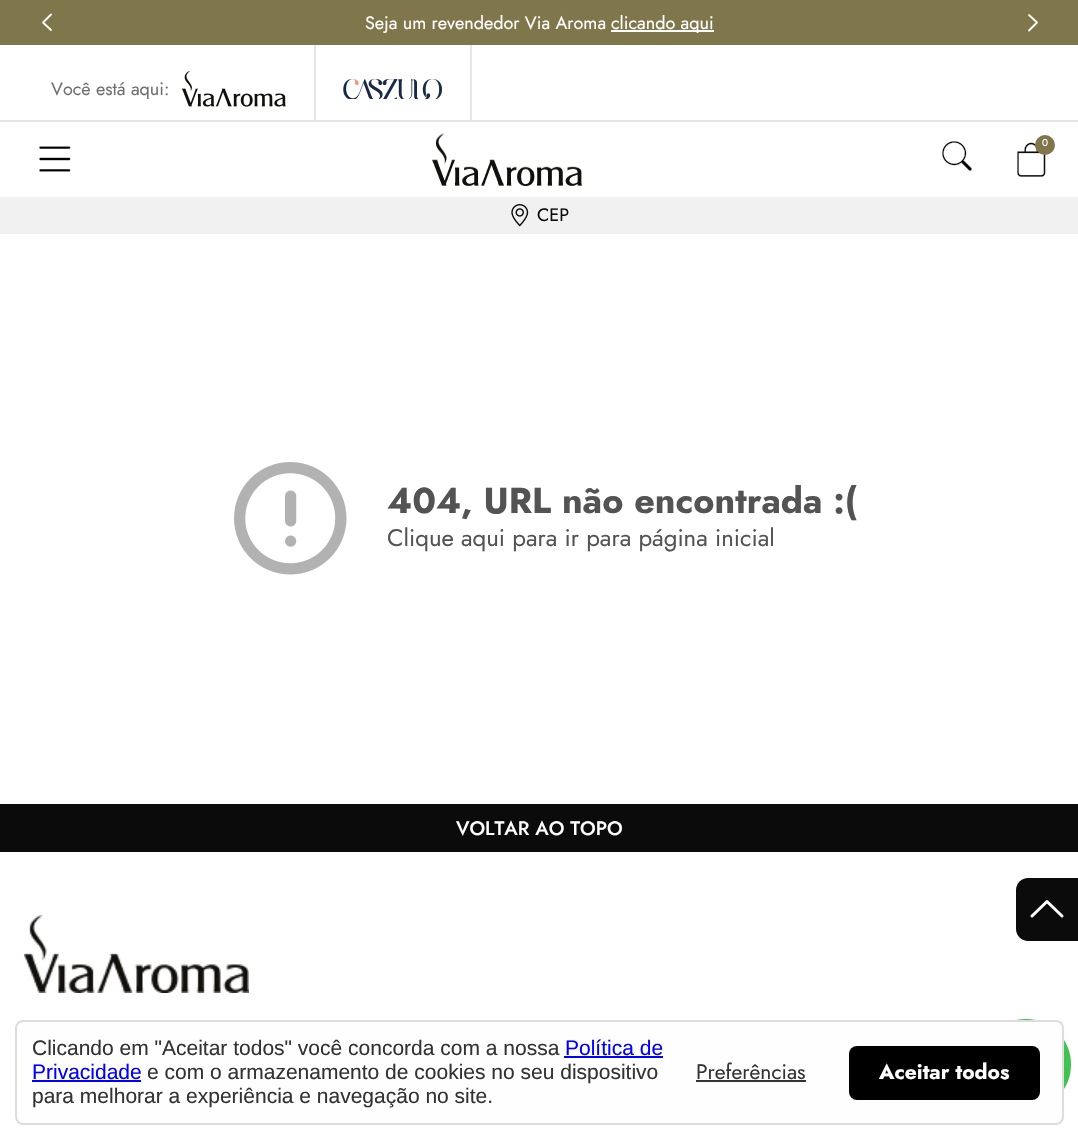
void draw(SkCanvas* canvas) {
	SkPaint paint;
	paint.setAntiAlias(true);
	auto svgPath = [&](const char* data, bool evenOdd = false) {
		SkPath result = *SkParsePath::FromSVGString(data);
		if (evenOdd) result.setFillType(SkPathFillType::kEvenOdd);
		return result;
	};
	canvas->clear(0xffffffff);
	paint.setColor(0xff80764b);
	canvas->drawRect(SkRect::MakeXYWH(0, 0, 1078, 45), paint);
	paint.setStroke(true);
	paint.setStrokeWidth(1.8);
	paint.setStrokeCap(SkPaint::kRound_Cap);
	paint.setStrokeJoin(SkPaint::kRound_Join);
	paint.setColor(0xffffffff);
	canvas->drawPath(svgPath("M51 30L43 22.5L51 14.5"), paint);
	SkFont f1(fontMgr->matchFamilyStyle("Jost", SkFontStyle::Normal()), 18);
	f1.setSubpixel(true);
	paint.setStroke(false);
	canvas->drawString("Seja um revendedor Via Aroma", 365, 29, f1, paint);
	canvas->drawRect(SkRect::MakeXYWH(611, 30, 103, 2), paint);
	canvas->drawString("clicando aqui", 611, 29, f1, paint);
	paint.setStroke(true);
	canvas->drawPath(svgPath("M1029 15L1037 22.5L1029 30.5"), paint);
	paint.setStroke(false);
	paint.setColor(0xffe5e5e5);
	canvas->drawRect(SkRect::MakeXYWH(0, 120, 1078, 2), paint);
	paint.setColor(0xff6f6f6f);
	canvas->drawString("Você está aqui:", 51, 95, f1, paint);
	canvas->drawImageRect(SkImages::DeferredFromEncodedData(SkData::MakeFromFileName("img1.png")), SkRect::MakeXYWH(182, 71, 104, 36), SkSamplingOptions());
	paint.setColor(0xffe5e5e5);
	canvas->drawRect(SkRect::MakeXYWH(470, 45, 2, 75), paint);
	canvas->drawRect(SkRect::MakeXYWH(314, 45, 2, 75), paint);
	canvas->drawImageRect(SkImages::DeferredFromEncodedData(SkData::MakeFromFileName("img2.png")), SkRect::MakeXYWH(343, 79, 99, 20), SkSamplingOptions());
	canvas->drawImageRect(SkImages::DeferredFromEncodedData(SkData::MakeFromFileName("img3.png")), SkRect::MakeXYWH(432, 133, 150, 53), SkSamplingOptions());
	canvas->drawImageRect(SkImages::DeferredFromEncodedData(SkData::MakeFromFileName("img4.png")), SkRect::MakeXYWH(942, 141, 30, 30), SkSamplingOptions());
	canvas->drawImageRect(SkImages::DeferredFromEncodedData(SkData::MakeFromFileName("img5.png")), SkRect::MakeXYWH(1017, 142, 29, 35), SkSamplingOptions());
	paint.setColor(0xff80764b);
	canvas->drawCircle(1045, 145, 10, paint);
	SkFont f2(fontMgr->matchFamilyStyle("Jost", SkFontStyle::Normal()), 10);
	f2.setSubpixel(true);
	paint.setColor(0xffffffff);
	canvas->drawString("0", 1042, 146, f2, paint);
	canvas->drawImageRect(SkImages::DeferredFromEncodedData(SkData::MakeFromFileName("img6.png")), SkRect::MakeXYWH(39, 146, 32, 26), SkSamplingOptions());
	paint.setColor(0xfff1f1f1);
	canvas->drawRect(SkRect::MakeXYWH(0, 197, 1078, 37), paint);
	canvas->drawImageRect(SkImages::DeferredFromEncodedData(SkData::MakeFromFileName("img7.png")), SkRect::MakeXYWH(511, 204, 18, 23), SkSamplingOptions());
	paint.setColor(0xff0b0b0b);
	canvas->drawString("CEP", 537, 221, f1, paint);
	canvas->drawImageRect(SkImages::DeferredFromEncodedData(SkData::MakeFromFileName("img8.png")), SkRect::MakeXYWH(234, 462, 113, 113), SkSamplingOptions());
	SkFont f3(fontMgr->matchFamilyStyle("Jost", SkFontStyle::Bold()), 36);
	f3.setSubpixel(true);
	paint.setColor(0xff535353);
	canvas->drawString("404, URL não encontrada :(", 387, 513, f3, paint);
	SkFont f4(fontMgr->matchFamilyStyle("Jost", SkFontStyle::Normal()), 24);
	f4.setSubpixel(true);
	canvas->drawString("Clique aqui para ir para página inicial", 387, 546, f4, paint);
	paint.setColor(0xff0b0b0b);
	canvas->drawRect(SkRect::MakeXYWH(0, 804, 1078, 48), paint);
	SkFont f5(fontMgr->matchFamilyStyle("Jost", SkFontStyle(500, SkFontStyle::kNormal_Width, SkFontStyle::kUpright_Slant)), 19.5);
	f5.setSubpixel(true);
	paint.setColor(0xffffffff);
	canvas->drawString("VOLTAR AO TOPO", 456, 835, f5, paint);
	canvas->drawImageRect(SkImages::DeferredFromEncodedData(SkData::MakeFromFileName("img9.png")), SkRect::MakeXYWH(24, 915, 225, 78), SkSamplingOptions());
	paint.setColor(0xff0b0b0b);
	canvas->drawPath(svgPath("M1028 878H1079V941H1028C1021.5 941 1016 935.5 1016 929V890C1016 883.5 1021.5 878 1028 878Z"), paint);
	paint.setStroke(true);
	paint.setStrokeWidth(3);
	paint.setColor(0xffffffff);
	canvas->drawPath(svgPath("M1062 916L1047 901.5L1032 916"), paint);
	paint.setStroke(false);
	paint.setColor(0xff40c351);
	canvas->drawRoundRect(SkRect::MakeXYWH(981, 1019, 90, 91), 45, 45, paint);
	paint.setColor(0xfffefefe);
	canvas->drawRoundRect(SkRect::MakeXYWH(16, 1021, 1047, 103), 7, 7, paint);
	paint.setStroke(true);
	paint.setStrokeWidth(2);
	paint.setStrokeCap(SkPaint::kButt_Cap);
	paint.setStrokeJoin(SkPaint::kMiter_Join);
	paint.setColor(0xffe0dcdc);
	canvas->drawRoundRect(SkRect::MakeXYWH(16, 1021, 1047, 103), 7, 7, paint);
	SkFont f6(fontMgr->matchFamilyStyle("Liberation Sans", SkFontStyle::Normal()), 21);
	f6.setSubpixel(true);
	paint.setStroke(false);
	paint.setColor(0xff333333);
	canvas->drawString("Clicando em \"Aceitar todos\" você concorda com a nossa", 32, 1055, f6, paint);
	paint.setColor(0xff0000ff);
	canvas->drawString("Política de", 565, 1055, f6, paint);
	canvas->drawRect(SkRect::MakeXYWH(564, 1056, 99, 2), paint);
	canvas->drawString("Privacidade", 32, 1079, f6, paint);
	canvas->drawRect(SkRect::MakeXYWH(32, 1080, 109, 2), paint);
	paint.setColor(0xff333333);
	canvas->drawString("e com o armazenamento de cookies no seu dispositivo", 147, 1079, f6, paint);
	canvas->drawString("para melhorar a experiência e navegação no site.", 32, 1103, f6, paint);
	SkFont f7(fontMgr->matchFamilyStyle("Jost", SkFontStyle::Normal()), 21);
	f7.setSubpixel(true);
	canvas->drawString("Preferências", 696, 1079, f7, paint);
	canvas->drawRect(SkRect::MakeXYWH(696, 1080, 110, 2), paint);
	paint.setColor(0xff000000);
	canvas->drawRoundRect(SkRect::MakeXYWH(849, 1046, 191, 54), 8, 8, paint);
	SkFont f8(fontMgr->matchFamilyStyle("Jost", SkFontStyle::Bold()), 21);
	f8.setSubpixel(true);
	paint.setColor(0xffffffff);
	canvas->drawString("Aceitar todos", 879, 1079, f8, paint);
}
